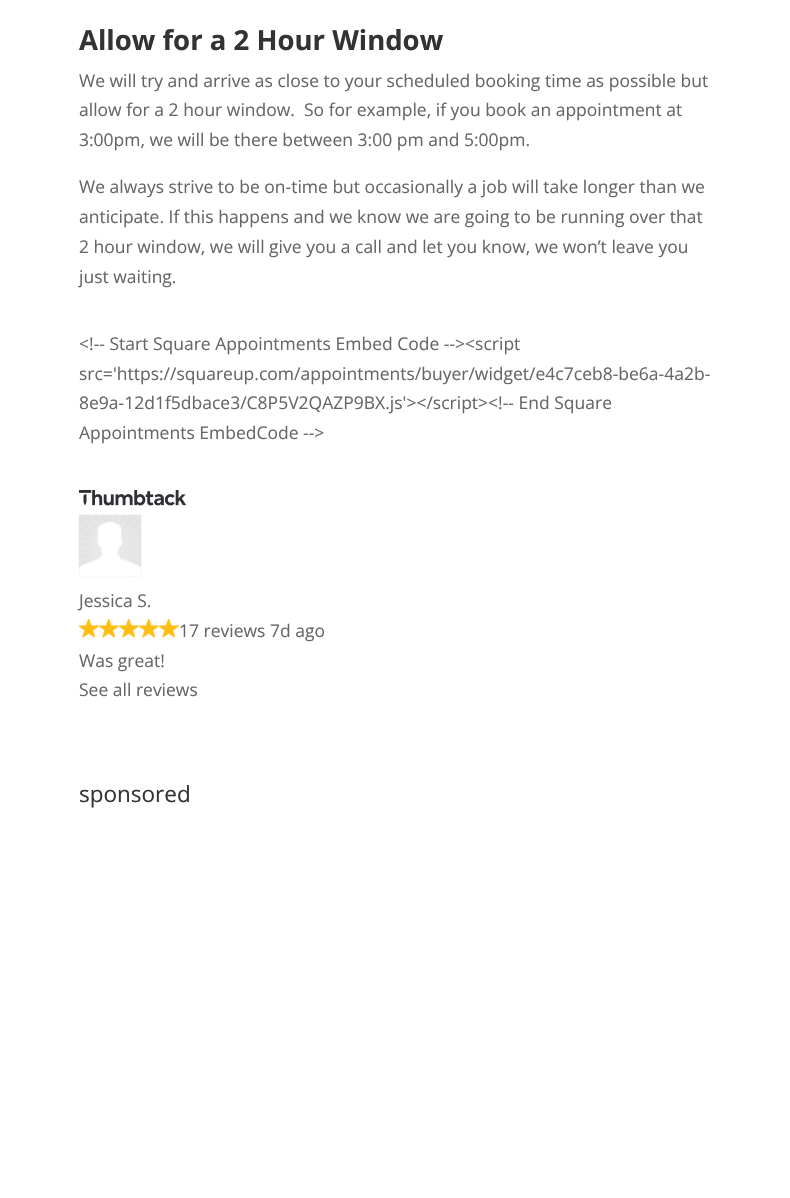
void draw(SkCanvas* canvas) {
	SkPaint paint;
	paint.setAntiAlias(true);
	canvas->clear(0xffffffff);
	SkFont f1(fontMgr->matchFamilyStyle("Open Sans", SkFontStyle::Bold()), 27.5);
	f1.setSubpixel(true);
	paint.setColor(0xff333333);
	canvas->drawString("Allow for a 2 Hour Window", 79, 50, f1, paint);
	SkFont f2(fontMgr->matchFamilyStyle("Open Sans", SkFontStyle::Normal()), 17.5);
	f2.setSubpixel(true);
	paint.setColor(0xff666666);
	canvas->drawString("We will try and arrive as close to your scheduled booking time as possible but", 79, 87, f2, paint);
	canvas->drawString("allow for a 2 hour window.  So for example, if you book an appointment at", 79, 116, f2, paint);
	canvas->drawString("3:00pm, we will be there between 3:00 pm and 5:00pm.", 79, 146, f2, paint);
	canvas->drawString("We always strive to be on-time but occasionally a job will take longer than we", 79, 193, f2, paint);
	canvas->drawString("anticipate. If this happens and we know we are going to be running over that", 79, 223, f2, paint);
	canvas->drawString("2 hour window, we will give you a call and let you know, we won’t leave you", 79, 253, f2, paint);
	canvas->drawString("just waiting.", 79, 283, f2, paint);
	canvas->drawString("<!-- Start Square Appointments Embed Code --><script", 79, 350, f2, paint);
	canvas->drawString("src='https://squareup.com/appointments/buyer/widget/e4c7ceb8-be6a-4a2b-", 79, 380, f2, paint);
	canvas->drawString("8e9a-12d1f5dbace3/C8P5V2QAZP9BX.js'></script><!-- End Square", 79, 409, f2, paint);
	canvas->drawString("Appointments EmbedCode -->", 79, 439, f2, paint);
	canvas->drawImageRect(SkImages::DeferredFromEncodedData(SkData::MakeFromFileName("img1.png")), SkRect::MakeXYWH(79, 490, 107, 16), SkSamplingOptions());
	canvas->drawImageRect(SkImages::DeferredFromEncodedData(SkData::MakeFromFileName("img2.png")), SkRect::MakeXYWH(78, 514, 64, 63), SkSamplingOptions());
	canvas->drawString("Jessica S.", 79, 607, f2, paint);
	canvas->drawImageRect(SkImages::DeferredFromEncodedData(SkData::MakeFromFileName("img3.png")), SkRect::MakeXYWH(79, 619, 20, 19), SkSamplingOptions());
	canvas->drawImageRect(SkImages::DeferredFromEncodedData(SkData::MakeFromFileName("img3.png")), SkRect::MakeXYWH(99, 619, 20, 19), SkSamplingOptions());
	canvas->drawImageRect(SkImages::DeferredFromEncodedData(SkData::MakeFromFileName("img3.png")), SkRect::MakeXYWH(119, 619, 20, 19), SkSamplingOptions());
	canvas->drawImageRect(SkImages::DeferredFromEncodedData(SkData::MakeFromFileName("img3.png")), SkRect::MakeXYWH(139, 619, 20, 19), SkSamplingOptions());
	canvas->drawImageRect(SkImages::DeferredFromEncodedData(SkData::MakeFromFileName("img3.png")), SkRect::MakeXYWH(159, 619, 20, 19), SkSamplingOptions());
	canvas->drawString("17 reviews 7d ago", 179, 637, f2, paint);
	canvas->drawString("Was great!", 79, 667, f2, paint);
	canvas->drawString("See all reviews", 79, 696, f2, paint);
	SkFont f3(fontMgr->matchFamilyStyle("Open Sans", SkFontStyle::Normal()), 22.5);
	f3.setSubpixel(true);
	paint.setColor(0xff333333);
	canvas->drawString("sponsored", 79, 802, f3, paint);
}
